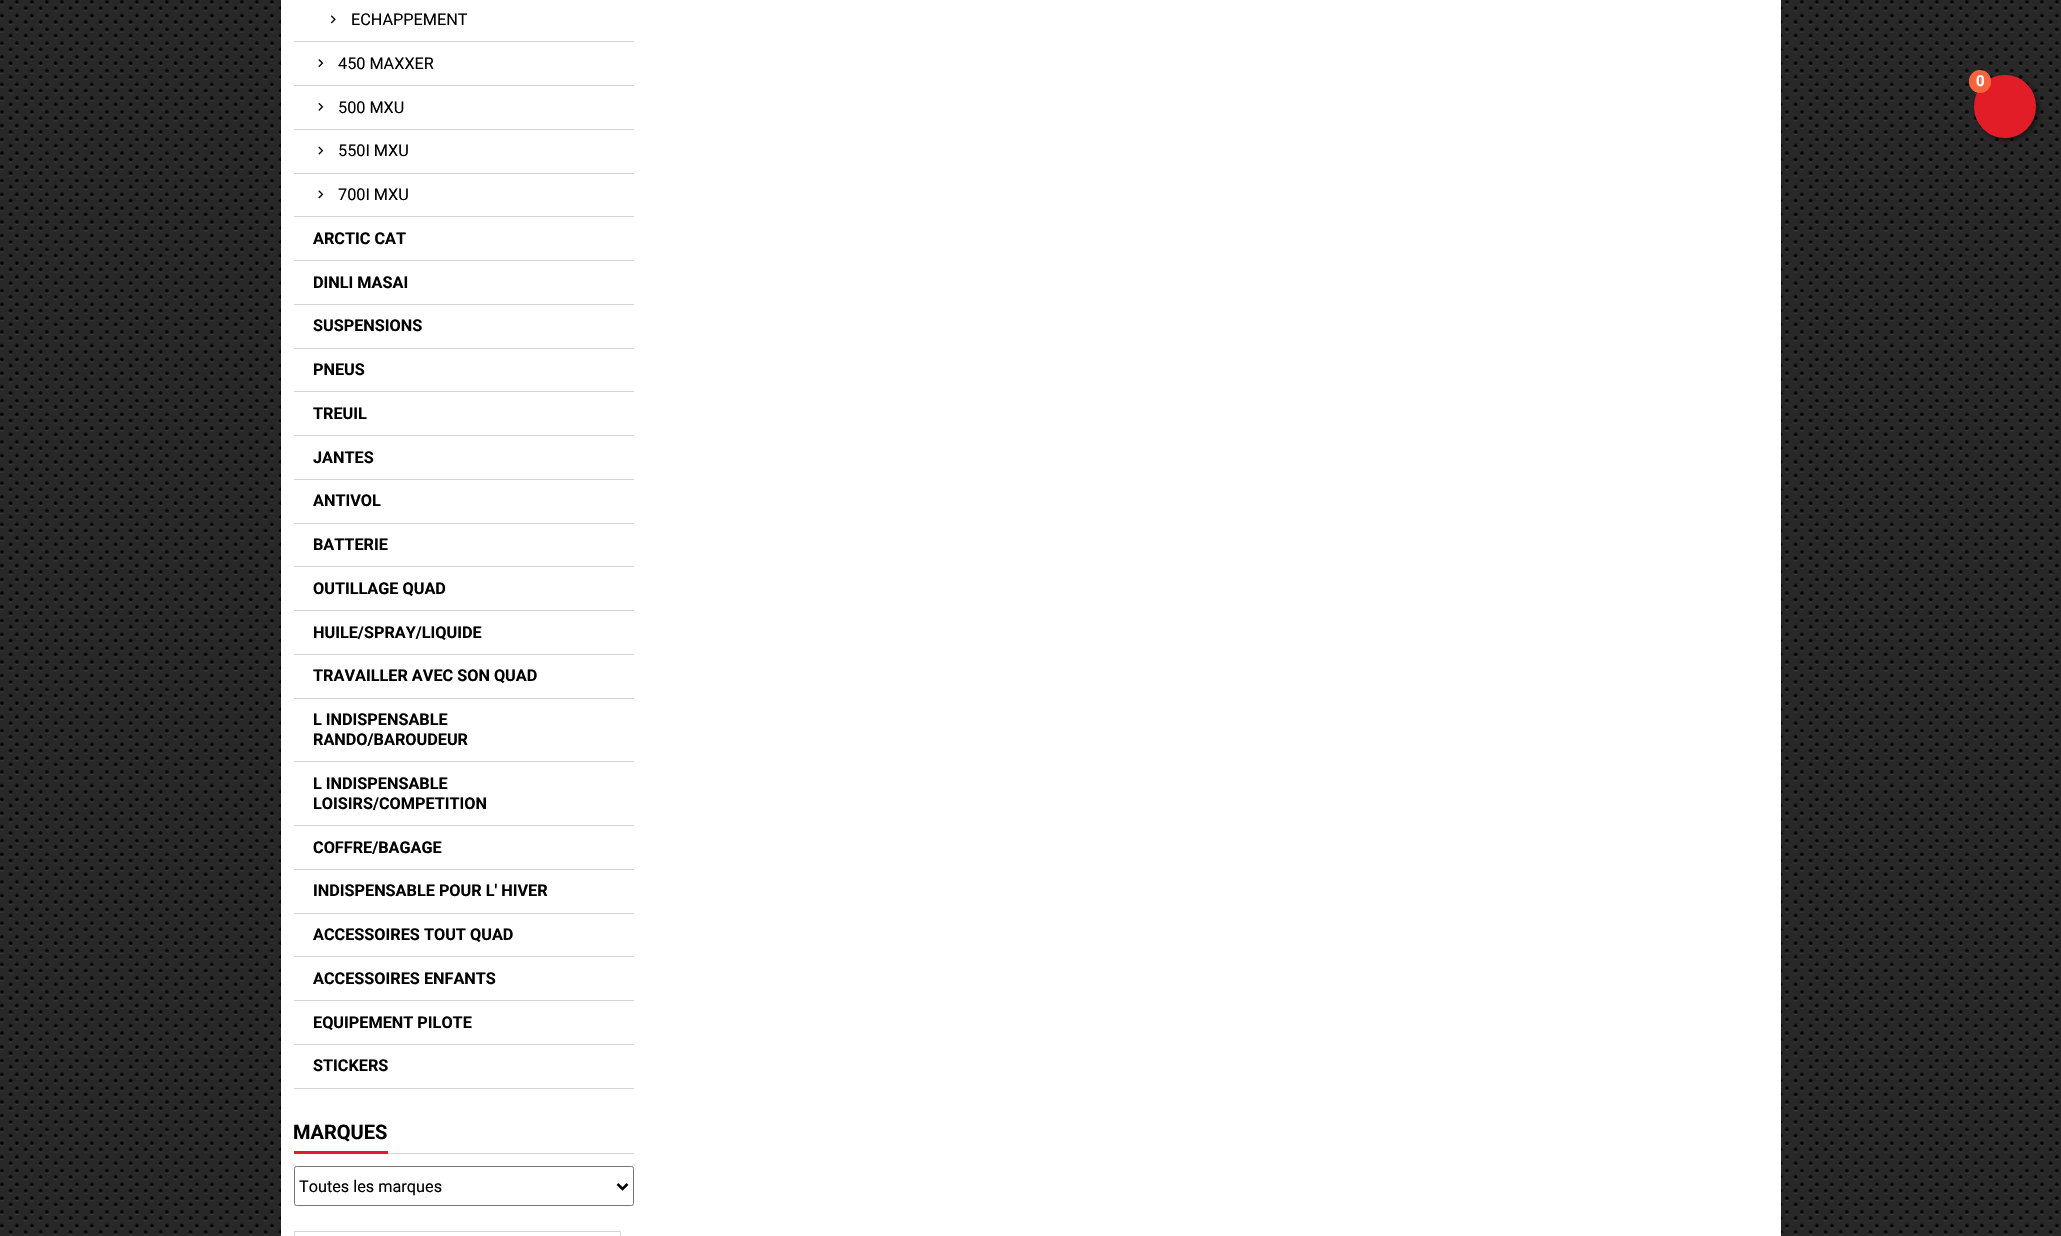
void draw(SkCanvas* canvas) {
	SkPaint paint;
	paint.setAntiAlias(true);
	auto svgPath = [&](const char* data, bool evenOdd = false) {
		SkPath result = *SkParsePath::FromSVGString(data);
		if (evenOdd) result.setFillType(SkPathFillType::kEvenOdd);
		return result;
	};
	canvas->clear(0xff282828);
	canvas->drawImageRect(SkImages::DeferredFromEncodedData(SkData::MakeFromFileName("img1.png")), SkRect::MakeXYWH(0, 0, 2059, 1235), SkSamplingOptions());
	paint.setColor(0x33000000);
	paint.setMaskFilter(SkMaskFilter::MakeBlur(kNormal_SkBlurStyle, 2.5));
	canvas->drawRect(SkRect::MakeXYWH(281, -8, 1500, 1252), paint);
	paint.setMaskFilter(nullptr);
	paint.setColor(0xffffffff);
	canvas->drawRect(SkRect::MakeXYWH(281, 0, 1500, 1236), paint);
	paint.setColor(0xffd6d4d4);
	canvas->drawRect(SkRect::MakeXYWH(294, 41, 340, 1), paint);
	canvas->drawImageRect(SkImages::DeferredFromEncodedData(SkData::MakeFromFileName("img2.png")), SkRect::MakeXYWH(330, 15, 6, 9), SkSamplingOptions());
	SkFont f1(fontMgr->matchFamilyStyle("Roboto", SkFontStyle::Normal()), 16.25);
	f1.setSubpixel(true);
	paint.setColor(0xff000000);
	canvas->drawString("ECHAPPEMENT", 351, 25, f1, paint);
	paint.setColor(0xffd6d4d4);
	canvas->drawRect(SkRect::MakeXYWH(294, 85, 340, 1), paint);
	canvas->drawImageRect(SkImages::DeferredFromEncodedData(SkData::MakeFromFileName("img3.png")), SkRect::MakeXYWH(318, 59, 6, 9), SkSamplingOptions());
	paint.setColor(0xff000000);
	canvas->drawString("450 MAXXER", 338, 69, f1, paint);
	paint.setColor(0xffd6d4d4);
	canvas->drawRect(SkRect::MakeXYWH(294, 129, 340, 1), paint);
	canvas->drawImageRect(SkImages::DeferredFromEncodedData(SkData::MakeFromFileName("img4.png")), SkRect::MakeXYWH(318, 102, 6, 9), SkSamplingOptions());
	paint.setColor(0xff000000);
	canvas->drawString("500 MXU", 338, 113, f1, paint);
	paint.setColor(0xffd6d4d4);
	canvas->drawRect(SkRect::MakeXYWH(294, 173, 340, 1), paint);
	canvas->drawImageRect(SkImages::DeferredFromEncodedData(SkData::MakeFromFileName("img5.png")), SkRect::MakeXYWH(318, 146, 6, 9), SkSamplingOptions());
	paint.setColor(0xff000000);
	canvas->drawString("550I MXU", 338, 156, f1, paint);
	paint.setColor(0xffd6d4d4);
	canvas->drawRect(SkRect::MakeXYWH(294, 216, 340, 1), paint);
	canvas->drawImageRect(SkImages::DeferredFromEncodedData(SkData::MakeFromFileName("img6.png")), SkRect::MakeXYWH(318, 190, 6, 9), SkSamplingOptions());
	paint.setColor(0xff000000);
	canvas->drawString("700I MXU", 338, 200, f1, paint);
	paint.setColor(0xffd6d4d4);
	canvas->drawRect(SkRect::MakeXYWH(294, 260, 340, 1), paint);
	SkFont f2(fontMgr->matchFamilyStyle("Roboto", SkFontStyle::Bold()), 16.25);
	f2.setSubpixel(true);
	paint.setColor(0xff000000);
	canvas->drawString("ARCTIC CAT", 313, 244, f2, paint);
	paint.setColor(0xffd6d4d4);
	canvas->drawRect(SkRect::MakeXYWH(294, 304, 340, 1), paint);
	paint.setColor(0xff000000);
	canvas->drawString("DINLI MASAI", 313, 288, f2, paint);
	paint.setColor(0xffd6d4d4);
	canvas->drawRect(SkRect::MakeXYWH(294, 348, 340, 1), paint);
	paint.setColor(0xff000000);
	canvas->drawString("SUSPENSIONS", 313, 331, f2, paint);
	paint.setColor(0xffd6d4d4);
	canvas->drawRect(SkRect::MakeXYWH(294, 391, 340, 1), paint);
	paint.setColor(0xff000000);
	canvas->drawString("PNEUS", 313, 375, f2, paint);
	paint.setColor(0xffd6d4d4);
	canvas->drawRect(SkRect::MakeXYWH(294, 435, 340, 1), paint);
	paint.setColor(0xff000000);
	canvas->drawString("TREUIL", 313, 419, f2, paint);
	paint.setColor(0xffd6d4d4);
	canvas->drawRect(SkRect::MakeXYWH(294, 479, 340, 1), paint);
	paint.setColor(0xff000000);
	canvas->drawString("JANTES", 313, 463, f2, paint);
	paint.setColor(0xffd6d4d4);
	canvas->drawRect(SkRect::MakeXYWH(294, 523, 340, 1), paint);
	paint.setColor(0xff000000);
	canvas->drawString("ANTIVOL", 313, 506, f2, paint);
	paint.setColor(0xffd6d4d4);
	canvas->drawRect(SkRect::MakeXYWH(294, 566, 340, 1), paint);
	paint.setColor(0xff000000);
	canvas->drawString("BATTERIE", 313, 550, f2, paint);
	paint.setColor(0xffd6d4d4);
	canvas->drawRect(SkRect::MakeXYWH(294, 610, 340, 1), paint);
	paint.setColor(0xff000000);
	canvas->drawString("OUTILLAGE QUAD", 313, 594, f2, paint);
	paint.setColor(0xffd6d4d4);
	canvas->drawRect(SkRect::MakeXYWH(294, 654, 340, 1), paint);
	paint.setColor(0xff000000);
	canvas->drawString("HUILE/SPRAY/LIQUIDE", 313, 638, f2, paint);
	paint.setColor(0xffd6d4d4);
	canvas->drawRect(SkRect::MakeXYWH(294, 698, 340, 1), paint);
	paint.setColor(0xff000000);
	canvas->drawString("TRAVAILLER AVEC SON QUAD", 313, 681, f2, paint);
	paint.setColor(0xffd6d4d4);
	canvas->drawRect(SkRect::MakeXYWH(294, 761, 340, 1), paint);
	paint.setColor(0xff000000);
	canvas->drawString("L INDISPENSABLE", 313, 725, f2, paint);
	canvas->drawString("RANDO/BAROUDEUR", 313, 745, f2, paint);
	paint.setColor(0xffd6d4d4);
	canvas->drawRect(SkRect::MakeXYWH(294, 825, 340, 1), paint);
	paint.setColor(0xff000000);
	canvas->drawString("L INDISPENSABLE", 313, 789, f2, paint);
	canvas->drawString("LOISIRS/COMPETITION", 313, 809, f2, paint);
	paint.setColor(0xffd6d4d4);
	canvas->drawRect(SkRect::MakeXYWH(294, 869, 340, 1), paint);
	paint.setColor(0xff000000);
	canvas->drawString("COFFRE/BAGAGE", 313, 853, f2, paint);
	paint.setColor(0xffd6d4d4);
	canvas->drawRect(SkRect::MakeXYWH(294, 913, 340, 1), paint);
	paint.setColor(0xff000000);
	canvas->drawString("INDISPENSABLE POUR L' HIVER", 313, 896, f2, paint);
	paint.setColor(0xffd6d4d4);
	canvas->drawRect(SkRect::MakeXYWH(294, 956, 340, 1), paint);
	paint.setColor(0xff000000);
	canvas->drawString("ACCESSOIRES TOUT QUAD", 313, 940, f2, paint);
	paint.setColor(0xffd6d4d4);
	canvas->drawRect(SkRect::MakeXYWH(294, 1000, 340, 1), paint);
	paint.setColor(0xff000000);
	canvas->drawString("ACCESSOIRES ENFANTS", 313, 984, f2, paint);
	paint.setColor(0xffd6d4d4);
	canvas->drawRect(SkRect::MakeXYWH(294, 1044, 340, 1), paint);
	paint.setColor(0xff000000);
	canvas->drawString("EQUIPEMENT PILOTE", 313, 1028, f2, paint);
	paint.setColor(0xffd6d4d4);
	canvas->drawRect(SkRect::MakeXYWH(294, 1088, 340, 1), paint);
	paint.setColor(0xff000000);
	canvas->drawString("STICKERS", 313, 1071, f2, paint);
	paint.setColor(0xffd6d4d4);
	canvas->drawRect(SkRect::MakeXYWH(388, 1153, 246, 1), paint);
	paint.setColor(0xffe31d27);
	canvas->drawRect(SkRect::MakeXYWH(294, 1151, 94, 3), paint);
	SkFont f3(fontMgr->matchFamilyStyle("Roboto", SkFontStyle::Bold()), 20);
	f3.setSubpixel(true);
	paint.setColor(0xff000000);
	canvas->drawString("MARQUES", 293, 1139, f3, paint);
	paint.setStroke(true);
	paint.setStrokeWidth(1);
	paint.setColor(0xff767676);
	canvas->drawRoundRect(SkRect::MakeXYWH(294.5, 1166.5, 339, 39), 2, 2, paint);
	paint.setStrokeWidth(2.5);
	paint.setColor(0xff000000);
	canvas->drawPath(svgPath("M617.5 1184L622.5 1189L627.5 1184"), paint);
	paint.setStroke(false);
	canvas->drawString("Toutes les marques", 299, 1192, f1, paint);
	paint.setStroke(true);
	paint.setStrokeWidth(1);
	paint.setColor(0xffd6d4d4);
	canvas->drawRect(SkRect::MakeXYWH(294.5, 1231.5, 326, 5), paint);
	paint.setStroke(false);
	paint.setColor(0x80000000);
	paint.setMaskFilter(SkMaskFilter::MakeBlur(kNormal_SkBlurStyle, 2.5));
	canvas->drawRoundRect(SkRect::MakeXYWH(1976, 78, 63, 62), 31, 31, paint);
	paint.setMaskFilter(nullptr);
	paint.setColor(0xffe31d27);
	canvas->drawRoundRect(SkRect::MakeXYWH(1974, 75, 62, 63), 31, 31, paint);
	paint.setColor(0xfff8653d);
	canvas->drawRoundRect(SkRect::MakeXYWH(1969, 70, 22, 23), 11, 11, paint);
	SkFont f4(fontMgr->matchFamilyStyle("Roboto", SkFontStyle::Bold()), 15);
	f4.setSubpixel(true);
	paint.setColor(0xffffffff);
	canvas->drawString("0", 1976, 86, f4, paint);
}
